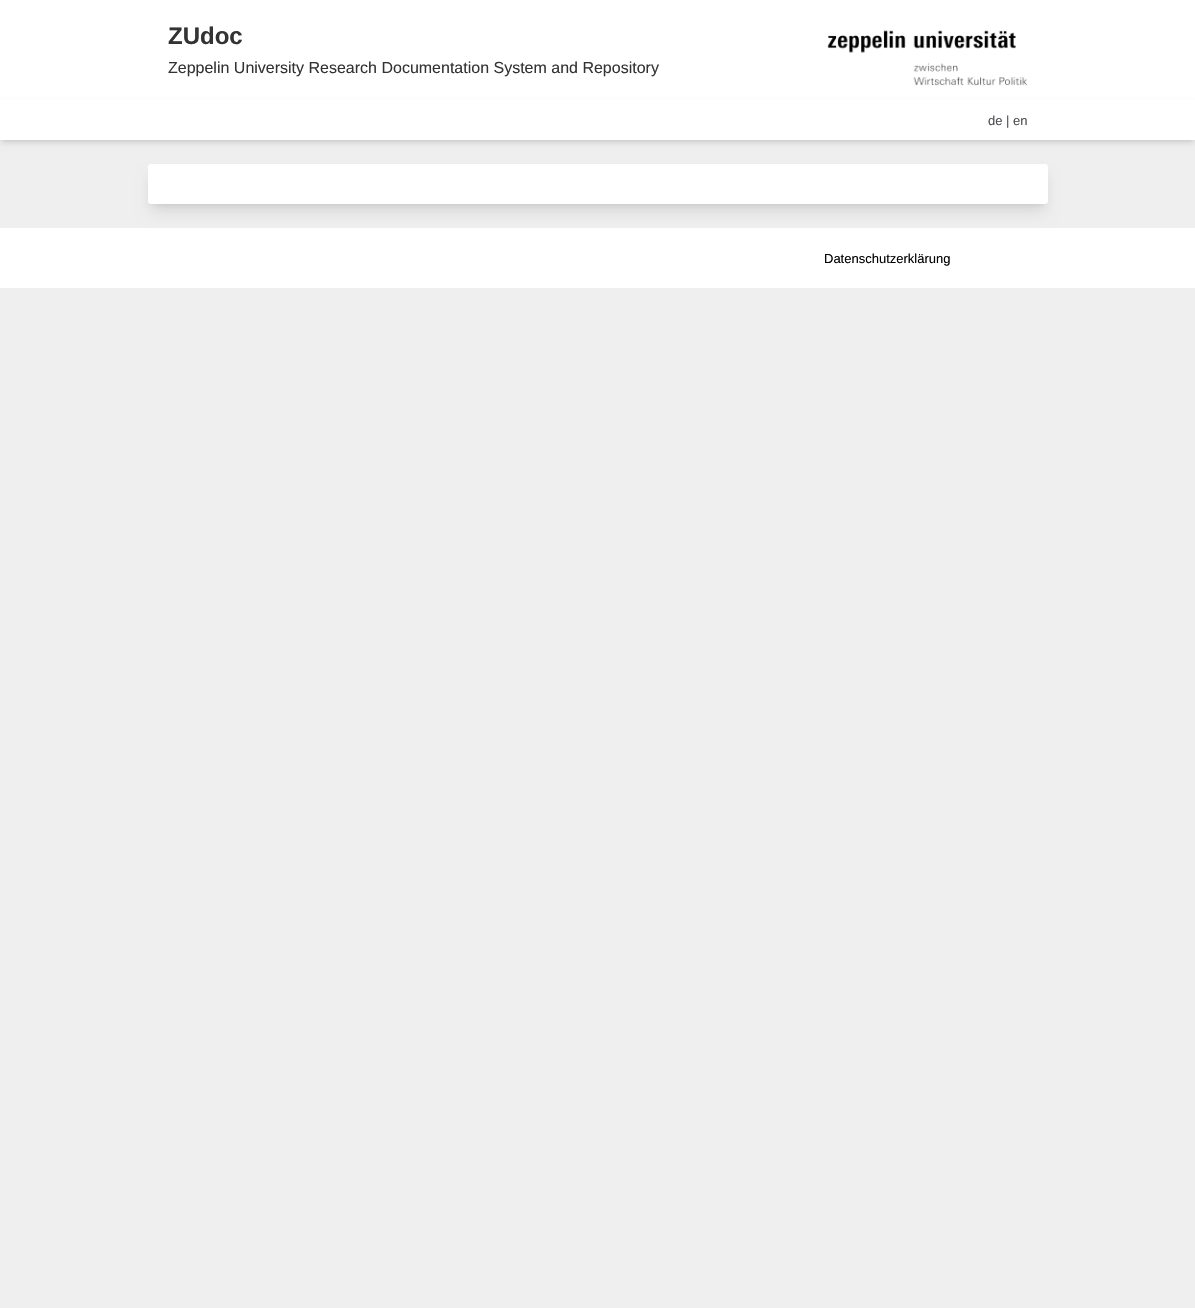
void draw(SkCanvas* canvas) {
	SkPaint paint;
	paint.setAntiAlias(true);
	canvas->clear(0xffefefef);
	paint.setColor(0xffffffff);
	canvas->drawRect(SkRect::MakeXYWH(0, 0, 1195, 100), paint);
	SkFont f1(fontMgr->matchFamilyStyle("Liberation Sans", SkFontStyle::Bold()), 24);
	f1.setSubpixel(true);
	paint.setColor(0xff333333);
	canvas->drawString("ZUdoc", 168, 44, f1, paint);
	SkFont f2(fontMgr->matchFamilyStyle("Liberation Sans", SkFontStyle::Normal()), 16);
	f2.setSubpixel(true);
	canvas->drawString("Zeppelin University Research Documentation System and Repository", 168, 73, f2, paint);
	canvas->drawImageRect(SkImages::DeferredFromEncodedData(SkData::MakeFromFileName("img1.png")), SkRect::MakeXYWH(827, 30, 201, 56), SkSamplingOptions());
	paint.setColor(0x1a000000);
	paint.setMaskFilter(SkMaskFilter::MakeBlur(kNormal_SkBlurStyle, 2));
	canvas->drawRect(SkRect::MakeXYWH(2, 104, 1191, 36), paint);
	paint.setMaskFilter(nullptr);
	paint.setMaskFilter(SkMaskFilter::MakeBlur(kNormal_SkBlurStyle, 3));
	canvas->drawRect(SkRect::MakeXYWH(1, 105, 1193, 38), paint);
	paint.setMaskFilter(nullptr);
	paint.setColor(0xffffffff);
	canvas->drawRect(SkRect::MakeXYWH(0, 100, 1195, 40), paint);
	SkFont f3(fontMgr->matchFamilyStyle("Liberation Sans", SkFontStyle::Normal()), 13);
	f3.setSubpixel(true);
	paint.setColor(0xff4d4f53);
	canvas->drawString("de | en", 988, 125, f3, paint);
	paint.setColor(0x1a000000);
	paint.setMaskFilter(SkMaskFilter::MakeBlur(kNormal_SkBlurStyle, 3));
	canvas->drawRect(SkRect::MakeXYWH(152, 172, 892, 32), paint);
	paint.setMaskFilter(nullptr);
	paint.setColor(0xffffffff);
	canvas->drawRect(SkRect::MakeXYWH(0, 228, 1195, 60), paint);
	paint.setColor(0x1a000000);
	paint.setMaskFilter(SkMaskFilter::MakeBlur(kNormal_SkBlurStyle, 7.5));
	canvas->drawRect(SkRect::MakeXYWH(151, 177, 894, 34), paint);
	paint.setMaskFilter(nullptr);
	paint.setColor(0xffffffff);
	canvas->drawRoundRect(SkRect::MakeXYWH(148, 164, 900, 40), 3, 3, paint);
	paint.setColor(0xff000000);
	canvas->drawString("Datenschutzerklärung", 824, 263, f3, paint);
}
